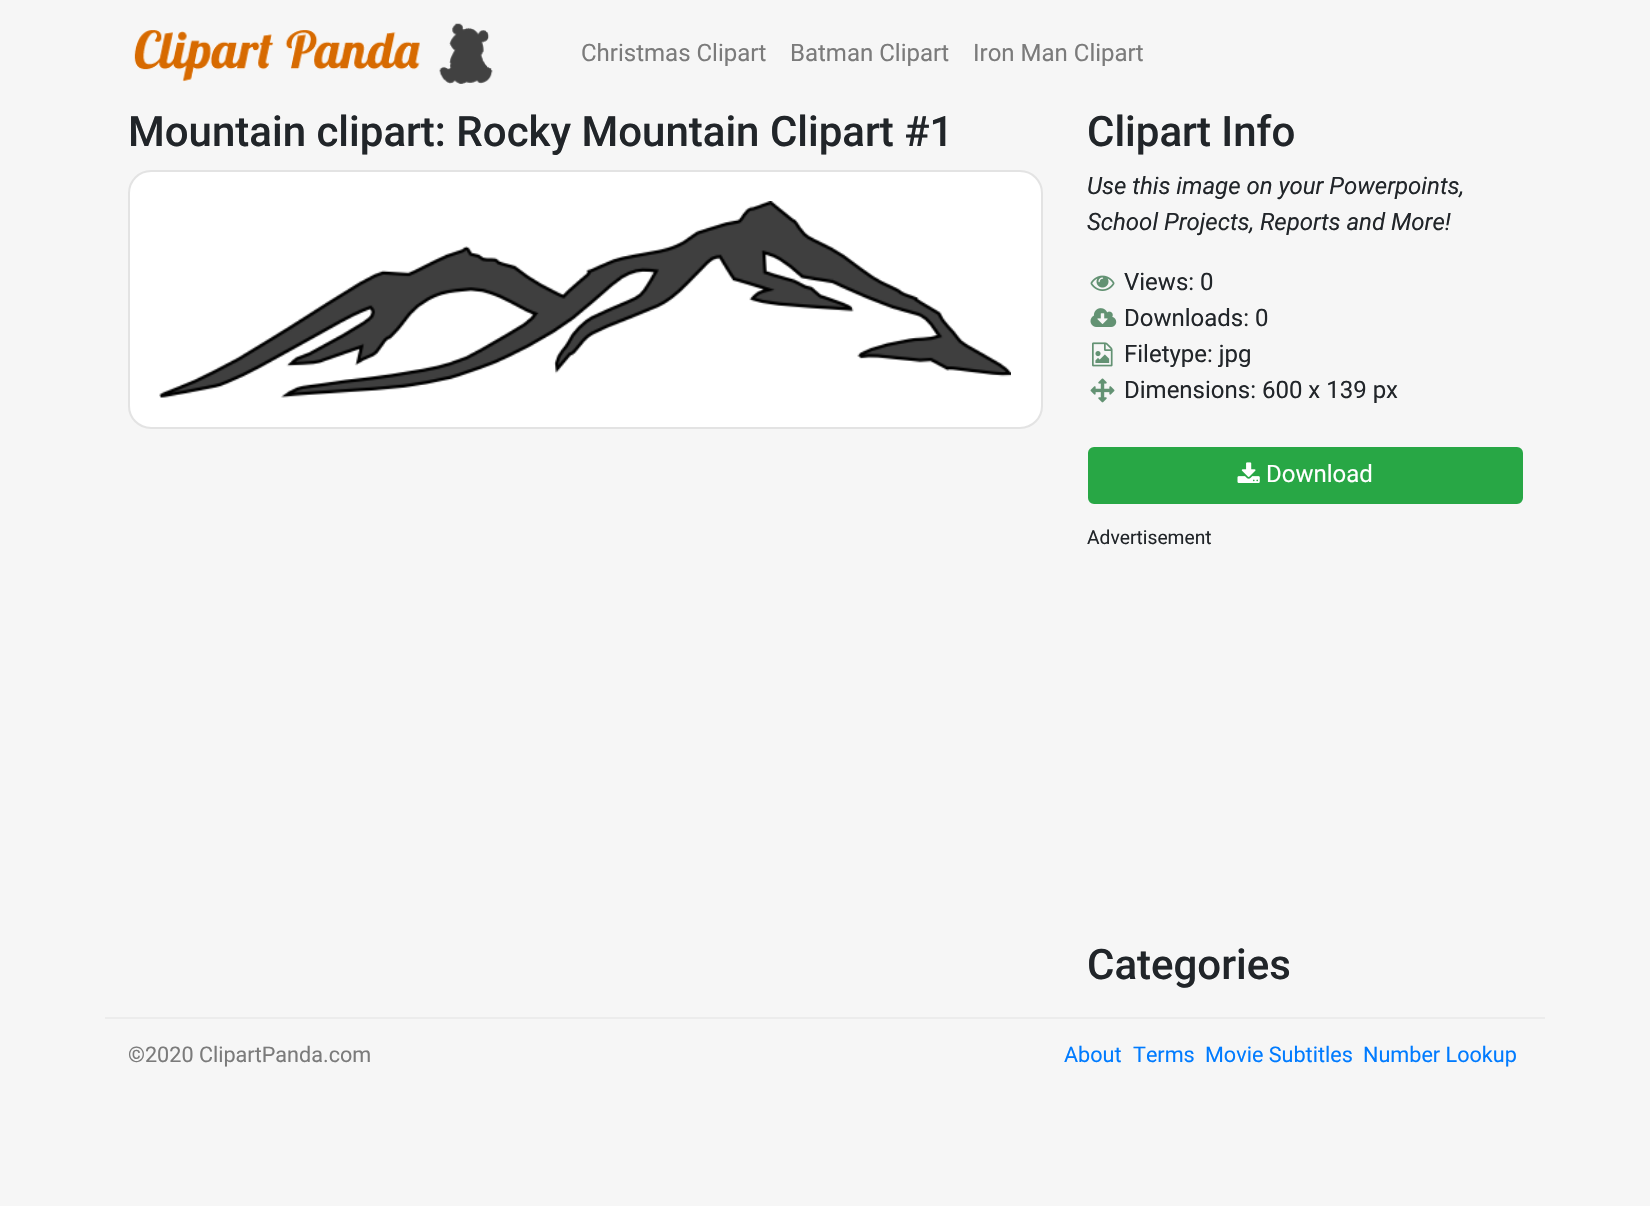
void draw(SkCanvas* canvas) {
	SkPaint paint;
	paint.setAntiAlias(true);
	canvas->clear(0xfff6f6f6);
	canvas->drawImageRect(SkImages::DeferredFromEncodedData(SkData::MakeFromFileName("img1.png")), SkRect::MakeXYWH(134, 23, 359, 61), SkSamplingOptions());
	SkFont f1(fontMgr->matchFamilyStyle("Roboto", SkFontStyle::Normal()), 24);
	f1.setSubpixel(true);
	paint.setColor(0xff7b7b7b);
	canvas->drawString("Christmas Clipart", 581, 61, f1, paint);
	canvas->drawString("Batman Clipart", 790, 61, f1, paint);
	canvas->drawString("Iron Man Clipart", 973, 61, f1, paint);
	SkFont f2(fontMgr->matchFamilyStyle("Roboto", SkFontStyle(500, SkFontStyle::kNormal_Width, SkFontStyle::kUpright_Slant)), 42);
	f2.setSubpixel(true);
	paint.setColor(0xff212529);
	canvas->drawString("Mountain clipart: Rocky Mountain Clipart #1", 128, 146, f2, paint);
	paint.setColor(0xffffffff);
	canvas->drawRoundRect(SkRect::MakeXYWH(129, 171, 913, 257), 22, 22, paint);
	paint.setStroke(true);
	paint.setStrokeWidth(2);
	paint.setColor(0xffe3e3e3);
	canvas->drawRoundRect(SkRect::MakeXYWH(129, 171, 913, 257), 22, 22, paint);
	canvas->drawImageRect(SkImages::DeferredFromEncodedData(SkData::MakeFromFileName("img2.png")), SkRect::MakeXYWH(159, 201, 852, 197), SkSamplingOptions());
	paint.setStroke(false);
	paint.setColor(0xff212529);
	canvas->drawString("Clipart Info", 1087, 146, f2, paint);
	SkFont f3(fontMgr->matchFamilyStyle("Roboto", SkFontStyle::Italic()), 24);
	f3.setSubpixel(true);
	canvas->drawString("Use this image on your Powerpoints,", 1087, 194, f3, paint);
	canvas->drawString("School Projects, Reports and More!", 1087, 230, f3, paint);
	canvas->drawImageRect(SkImages::DeferredFromEncodedData(SkData::MakeFromFileName("img3.png")), SkRect::MakeXYWH(1090, 275, 25, 16), SkSamplingOptions());
	canvas->drawString("Views: 0", 1124, 290, f1, paint);
	canvas->drawImageRect(SkImages::DeferredFromEncodedData(SkData::MakeFromFileName("img4.png")), SkRect::MakeXYWH(1090, 308, 27, 19), SkSamplingOptions());
	canvas->drawString("Downloads: 0", 1124, 326, f1, paint);
	canvas->drawImageRect(SkImages::DeferredFromEncodedData(SkData::MakeFromFileName("img5.png")), SkRect::MakeXYWH(1092, 342, 21, 25), SkSamplingOptions());
	canvas->drawString("Filetype: jpg", 1124, 362, f1, paint);
	canvas->drawImageRect(SkImages::DeferredFromEncodedData(SkData::MakeFromFileName("img6.png")), SkRect::MakeXYWH(1090, 378, 25, 25), SkSamplingOptions());
	canvas->drawString("Dimensions: 600 x 139 px", 1124, 398, f1, paint);
	paint.setColor(0xff28a745);
	canvas->drawRoundRect(SkRect::MakeXYWH(1089, 448, 433, 55), 5, 5, paint);
	paint.setStroke(true);
	canvas->drawRoundRect(SkRect::MakeXYWH(1089, 448, 433, 55), 5, 5, paint);
	canvas->drawImageRect(SkImages::DeferredFromEncodedData(SkData::MakeFromFileName("img7.png")), SkRect::MakeXYWH(1237, 462, 23, 21), SkSamplingOptions());
	paint.setStroke(false);
	paint.setColor(0xffffffff);
	canvas->drawString("Download", 1266, 482, f1, paint);
	SkFont f4(fontMgr->matchFamilyStyle("Roboto", SkFontStyle::Normal()), 19.25);
	f4.setSubpixel(true);
	paint.setColor(0xff212529);
	canvas->drawString("Advertisement", 1087, 544, f4, paint);
	canvas->drawString("Categories", 1087, 979, f2, paint);
	paint.setColor(0xffececec);
	canvas->drawRect(SkRect::MakeXYWH(105, 1017, 1440, 2), paint);
	SkFont f5(fontMgr->matchFamilyStyle("Roboto", SkFontStyle::Normal()), 21.6);
	f5.setSubpixel(true);
	paint.setColor(0xff7b7b7b);
	canvas->drawString("©2020 ClipartPanda.com", 128, 1062, f5, paint);
	paint.setColor(0xff007bff);
	canvas->drawString("About", 1064, 1062, f5, paint);
	canvas->drawString("Terms", 1133, 1062, f5, paint);
	canvas->drawString("Movie Subtitles", 1205, 1062, f5, paint);
	canvas->drawString("Number Lookup", 1363, 1062, f5, paint);
}
